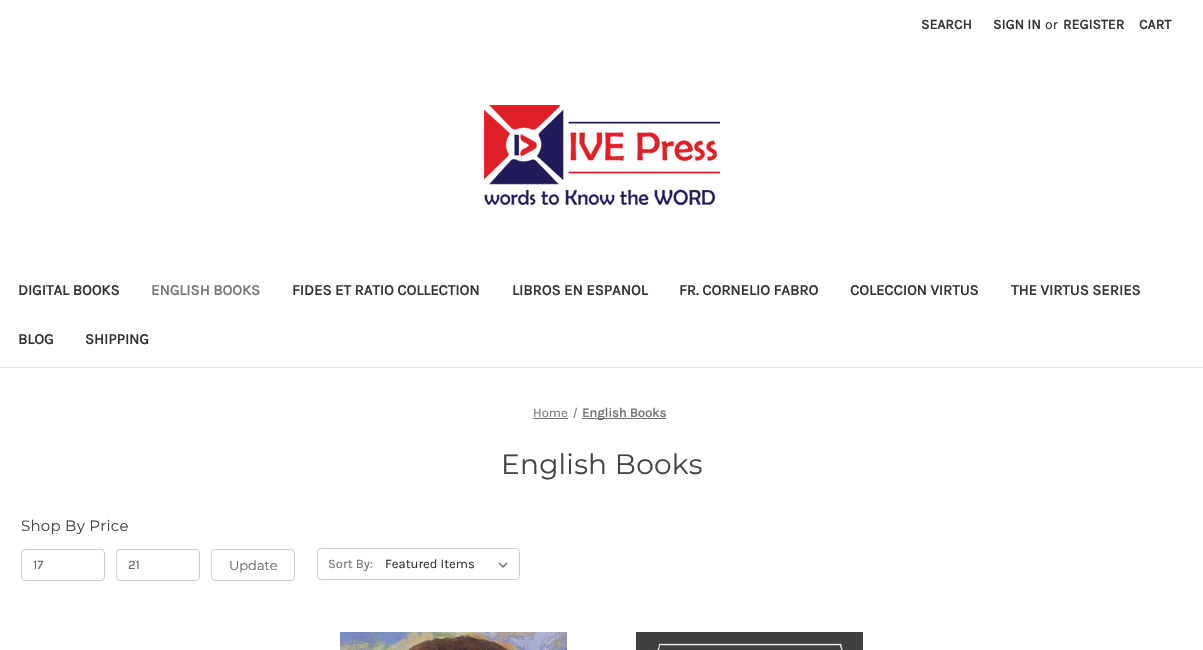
void draw(SkCanvas* canvas) {
	SkPaint paint;
	paint.setAntiAlias(true);
	auto spacedText = [&](const char* s, float x, float y, const SkFont& font, const SkPaint& ink, float letter, float word) {
		std::vector<SkGlyphID> glyphs(font.countText(s, strlen(s), SkTextEncoding::kUTF8));
		std::vector<float> xs(glyphs.size());
		font.textToGlyphs(s, strlen(s), SkTextEncoding::kUTF8, glyphs);
		font.getXPos(glyphs, xs, x);
		float extra = 0;
		for (size_t i = 0; i < glyphs.size(); i++) {
			xs[i] += extra;
			extra += letter + word * (glyphs[i] == font.unicharToGlyph(' '));
		}
		canvas->drawTextBlob(SkTextBlob::MakeFromPosHGlyphs(glyphs, xs, y, font), 0, 0, ink);
	};
	auto svgPath = [&](const char* data, bool evenOdd = false) {
		SkPath result = *SkParsePath::FromSVGString(data);
		if (evenOdd) result.setFillType(SkPathFillType::kEvenOdd);
		return result;
	};
	canvas->clear(0xffffffff);
	paint.setColor(0xffe5e5e5);
	canvas->drawRect(SkRect::MakeXYWH(0, 367, 1203, 1), paint);
	SkFont f1(fontMgr->matchFamilyStyle("Karla", SkFontStyle::Bold()), 14);
	f1.setSubpixel(true);
	paint.setColor(0xff333333);
	canvas->drawString("SEARCH", 921, 29, f1, paint);
	canvas->drawString("SIGN IN", 993, 29, f1, paint);
	SkFont f2(fontMgr->matchFamilyStyle("Karla", SkFontStyle::Normal()), 14);
	f2.setSubpixel(true);
	canvas->drawString("or", 1045, 29, f2, paint);
	canvas->drawString("REGISTER", 1063, 29, f1, paint);
	canvas->drawString("CART", 1139, 29, f1, paint);
	canvas->drawImageRect(SkImages::DeferredFromEncodedData(SkData::MakeFromFileName("img1.png")), SkRect::MakeXYWH(484, 105, 236, 100), SkSamplingOptions());
	SkFont f3(fontMgr->matchFamilyStyle("Karla", SkFontStyle::Bold()), 15);
	f3.setSubpixel(true);
	canvas->drawString("DIGITAL BOOKS", 18, 295, f3, paint);
	paint.setColor(0xff757575);
	canvas->drawString("ENGLISH BOOKS", 151, 295, f3, paint);
	paint.setColor(0xff333333);
	canvas->drawString("FIDES ET RATIO COLLECTION", 292, 295, f3, paint);
	canvas->drawString("LIBROS EN ESPANOL", 512, 295, f3, paint);
	canvas->drawString("FR. CORNELIO FABRO", 679, 295, f3, paint);
	canvas->drawString("COLECCION VIRTUS", 850, 295, f3, paint);
	canvas->drawString("THE VIRTUS SERIES", 1011, 295, f3, paint);
	canvas->drawString("BLOG", 18, 344, f3, paint);
	canvas->drawString("SHIPPING", 85, 344, f3, paint);
	SkFont f4(fontMgr->matchFamilyStyle("Karla", SkFontStyle::Normal()), 13);
	f4.setSubpixel(true);
	paint.setColor(0xff757575);
	canvas->drawString("Home", 533, 417, f4, paint);
	canvas->drawRect(SkRect::MakeXYWH(533, 418, 35, 1), paint);
	canvas->drawPath(svgPath("M576 407.5L577 408L574.5 418L573.5 417.5Z"), paint);
	canvas->drawRect(SkRect::MakeXYWH(582, 418, 84, 1), paint);
	SkFont f5(fontMgr->matchFamilyStyle("Karla", SkFontStyle::Bold()), 13);
	f5.setSubpixel(true);
	canvas->drawString("English Books", 582, 417, f5, paint);
	SkFont f6(fontMgr->matchFamilyStyle("Montserrat", SkFontStyle(100, SkFontStyle::kNormal_Width, SkFontStyle::kUpright_Slant)), 28);
	f6.setSubpixel(true);
	paint.setColor(0xff444444);
	spacedText("English Books", 501, 474, f6, paint, 0.25, 0);
	SkFont f7(fontMgr->matchFamilyStyle("Montserrat", SkFontStyle(100, SkFontStyle::kNormal_Width, SkFontStyle::kUpright_Slant)), 15);
	f7.setSubpixel(true);
	spacedText("Shop By Price", 21, 531, f7, paint, 0.25, 0);
	paint.setStroke(true);
	paint.setStrokeWidth(1);
	paint.setColor(0xffcccccc);
	canvas->drawRoundRect(SkRect::MakeXYWH(21.5, 549.5, 83, 31), 3.5, 3.5, paint);
	paint.setStroke(false);
	paint.setColor(0xff666666);
	canvas->drawString("17", 33, 569, f4, paint);
	paint.setStroke(true);
	paint.setColor(0xffcccccc);
	canvas->drawRoundRect(SkRect::MakeXYWH(116.5, 549.5, 83, 31), 3.5, 3.5, paint);
	paint.setStroke(false);
	paint.setColor(0xff666666);
	canvas->drawString("21", 128, 569, f4, paint);
	paint.setStroke(true);
	paint.setColor(0xffcccccc);
	canvas->drawRoundRect(SkRect::MakeXYWH(211.5, 549.5, 83, 31), 3.5, 3.5, paint);
	SkFont f8(fontMgr->matchFamilyStyle("Montserrat", SkFontStyle(100, SkFontStyle::kNormal_Width, SkFontStyle::kUpright_Slant)), 13);
	f8.setSubpixel(true);
	paint.setStroke(false);
	paint.setColor(0xff666666);
	canvas->drawString("Update", 229, 570, f8, paint);
	paint.setStroke(true);
	paint.setColor(0xffcccccc);
	canvas->drawRoundRect(SkRect::MakeXYWH(317.5, 548.5, 202, 31), 3.5, 3.5, paint);
	paint.setStroke(false);
	paint.setColor(0xff757575);
	canvas->drawString("Sort By:", 328, 568, f4, paint);
	paint.setColor(0xffffffff);
	canvas->drawRoundRect(SkRect::MakeXYWH(382, 549, 137, 30), 4, 4, paint);
	canvas->drawImageRect(SkImages::DeferredFromEncodedData(SkData::MakeFromFileName("img2.png")), SkRect::MakeXYWH(498, 562, 10, 6), SkSamplingOptions());
	paint.setColor(0xff333333);
	canvas->drawString("Featured Items", 385, 568, f4, paint);
	canvas->drawImageRect(SkImages::DeferredFromEncodedData(SkData::MakeFromFileName("img3.png")), SkRect::MakeXYWH(340, 632, 227, 18), SkSamplingOptions());
	canvas->drawImageRect(SkImages::DeferredFromEncodedData(SkData::MakeFromFileName("img4.png")), SkRect::MakeXYWH(636, 632, 227, 18), SkSamplingOptions());
}
